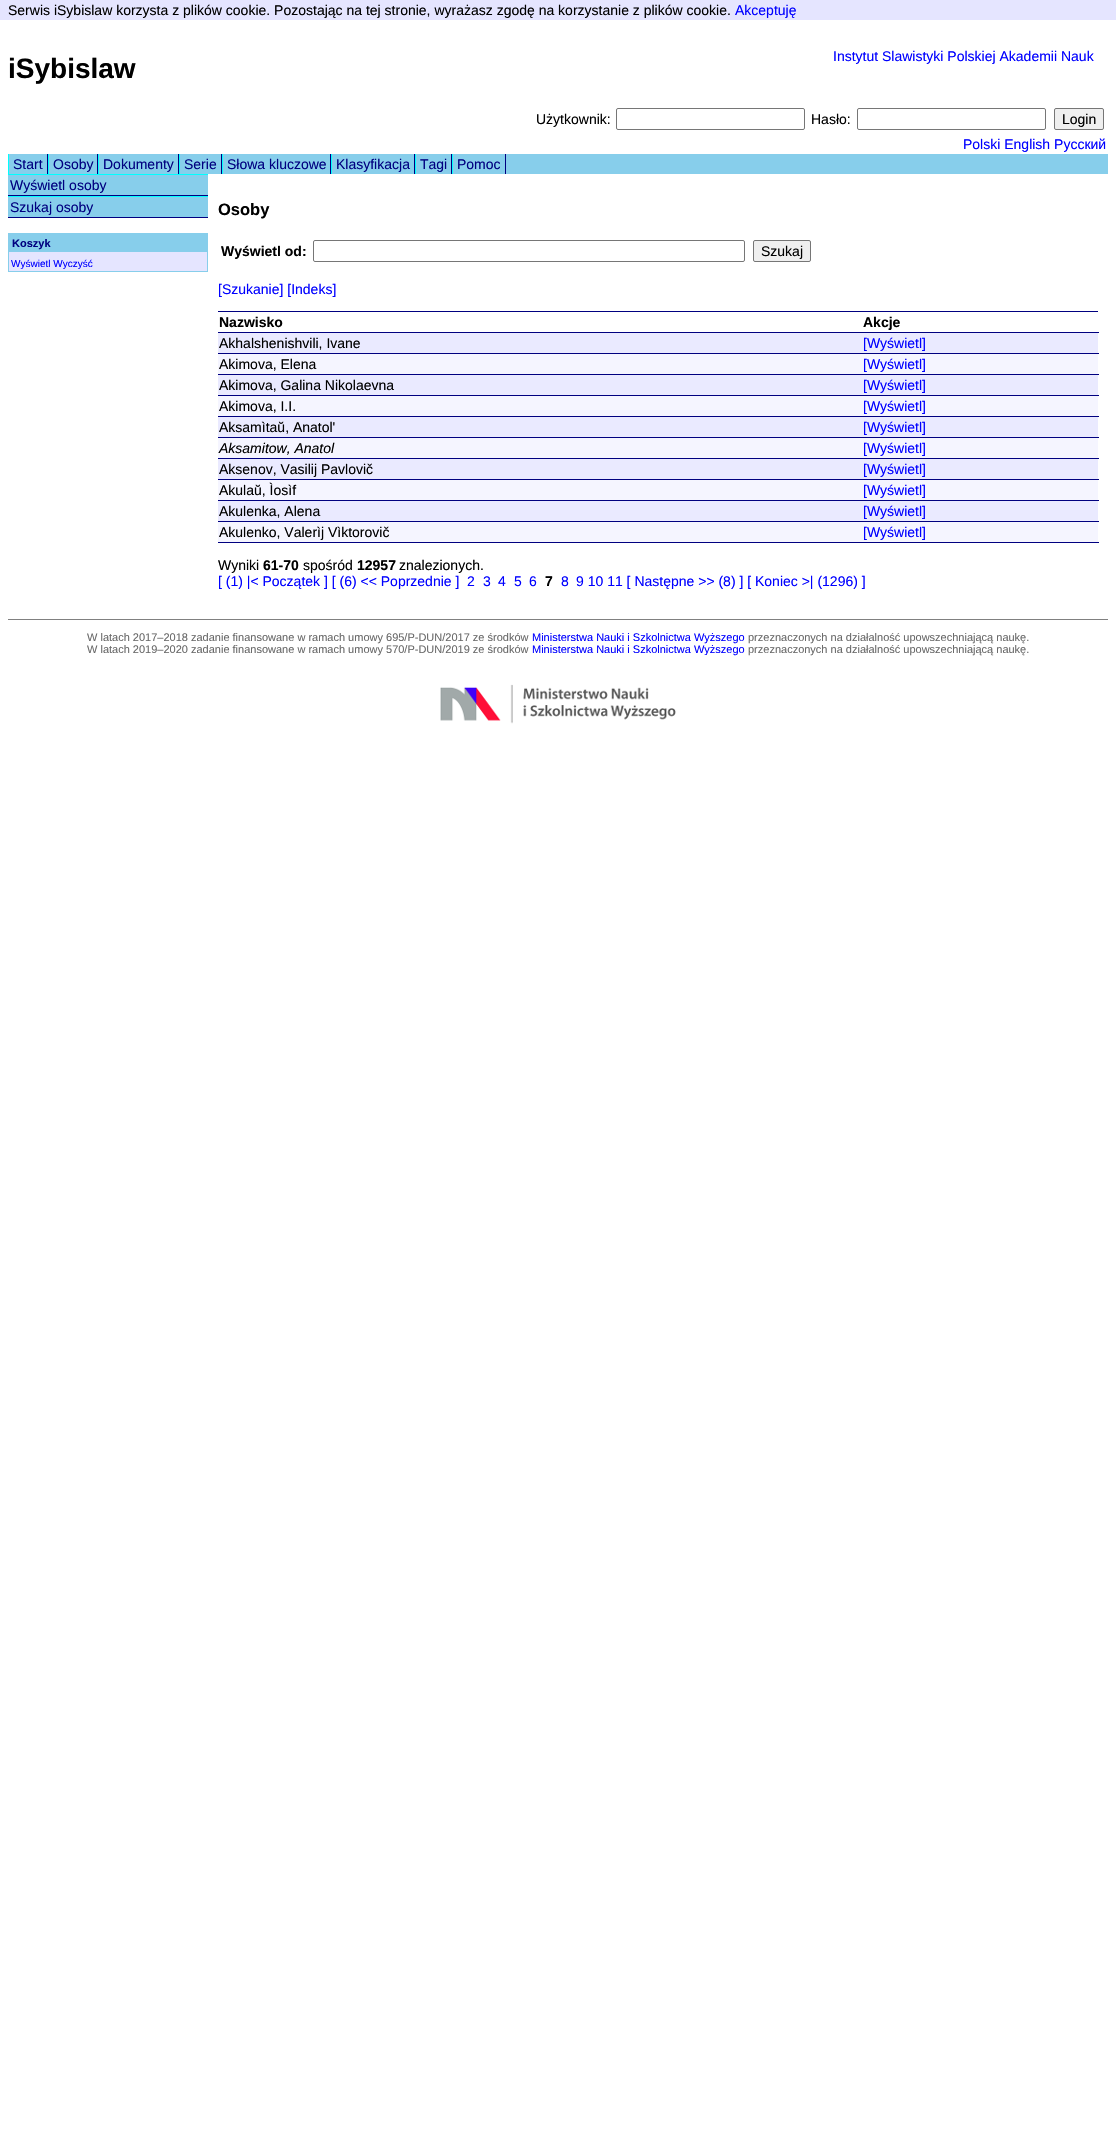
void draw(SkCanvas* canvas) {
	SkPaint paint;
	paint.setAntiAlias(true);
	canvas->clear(0xffffffff);
	paint.setColor(0xffe5e5ff);
	canvas->drawRect(SkRect::MakeXYWH(0, 0, 1116, 20), paint);
	SkFont f1(fontMgr->matchFamilyStyle("Liberation Sans", SkFontStyle::Normal()), 14);
	f1.setSubpixel(true);
	paint.setColor(0xff000000);
	canvas->drawString("Serwis iSybislaw korzysta z plików cookie. Pozostając na tej stronie, wyrażasz zgodę na korzystanie z plików cookie.", 8, 15, f1, paint);
	paint.setColor(0xff0000ff);
	canvas->drawString("Akceptuję", 735, 15, f1, paint);
	SkFont f2(fontMgr->matchFamilyStyle("Liberation Sans", SkFontStyle::Bold()), 28);
	f2.setSubpixel(true);
	paint.setColor(0xff000000);
	canvas->drawString("iSybislaw", 8, 78, f2, paint);
	paint.setColor(0xff0000ff);
	canvas->drawString("Instytut Slawistyki Polskiej Akademii Nauk", 833, 61, f1, paint);
	paint.setColor(0xff000000);
	canvas->drawString("Użytkownik:", 536, 124, f1, paint);
	paint.setStroke(true);
	paint.setStrokeWidth(1);
	paint.setColor(0xff767676);
	canvas->drawRoundRect(SkRect::MakeXYWH(616.5, 108.5, 188, 21), 1.5, 1.5, paint);
	paint.setStroke(false);
	paint.setColor(0xff000000);
	canvas->drawString("Hasło:", 811, 124, f1, paint);
	paint.setStroke(true);
	paint.setColor(0xff767676);
	canvas->drawRoundRect(SkRect::MakeXYWH(857.5, 108.5, 188, 21), 1.5, 1.5, paint);
	paint.setStroke(false);
	paint.setColor(0xffefefef);
	canvas->drawRoundRect(SkRect::MakeXYWH(1054.5, 108.5, 49, 21), 1.5, 1.5, paint);
	paint.setStroke(true);
	paint.setColor(0xff767676);
	canvas->drawRoundRect(SkRect::MakeXYWH(1054.5, 108.5, 49, 21), 1.5, 1.5, paint);
	paint.setStroke(false);
	paint.setColor(0xff000000);
	canvas->drawString("Login", 1062, 124, f1, paint);
	paint.setColor(0xff0000ff);
	canvas->drawString("Polski English Русский", 963, 149, f1, paint);
	paint.setColor(0xff87ceeb);
	canvas->drawRect(SkRect::MakeXYWH(9, 154, 1099, 20), paint);
	paint.setColor(0xff000080);
	canvas->drawRect(SkRect::MakeXYWH(47, 154, 1, 20), paint);
	paint.setColor(0xff00ffff);
	canvas->drawRect(SkRect::MakeXYWH(8, 154, 1, 20), paint);
	paint.setColor(0xff000080);
	canvas->drawString("Start", 13, 169, f1, paint);
	canvas->drawRect(SkRect::MakeXYWH(97, 154, 1, 20), paint);
	paint.setColor(0xff00ffff);
	canvas->drawRect(SkRect::MakeXYWH(48, 154, 1, 20), paint);
	paint.setColor(0xff000080);
	canvas->drawString("Osoby", 53, 169, f1, paint);
	canvas->drawRect(SkRect::MakeXYWH(178, 154, 1, 20), paint);
	paint.setColor(0xff00ffff);
	canvas->drawRect(SkRect::MakeXYWH(98, 154, 1, 20), paint);
	paint.setColor(0xff000080);
	canvas->drawString("Dokumenty", 103, 169, f1, paint);
	canvas->drawRect(SkRect::MakeXYWH(221, 154, 1, 20), paint);
	paint.setColor(0xff00ffff);
	canvas->drawRect(SkRect::MakeXYWH(179, 154, 1, 20), paint);
	paint.setColor(0xff000080);
	canvas->drawString("Serie", 184, 169, f1, paint);
	canvas->drawRect(SkRect::MakeXYWH(330, 154, 1, 20), paint);
	paint.setColor(0xff00ffff);
	canvas->drawRect(SkRect::MakeXYWH(222, 154, 1, 20), paint);
	paint.setColor(0xff000080);
	canvas->drawString("Słowa kluczowe", 227, 169, f1, paint);
	canvas->drawRect(SkRect::MakeXYWH(414, 154, 1, 20), paint);
	paint.setColor(0xff00ffff);
	canvas->drawRect(SkRect::MakeXYWH(331, 154, 1, 20), paint);
	paint.setColor(0xff000080);
	canvas->drawString("Klasyfikacja", 336, 169, f1, paint);
	canvas->drawRect(SkRect::MakeXYWH(451, 154, 1, 20), paint);
	paint.setColor(0xff00ffff);
	canvas->drawRect(SkRect::MakeXYWH(415, 154, 1, 20), paint);
	paint.setColor(0xff000080);
	canvas->drawString("Tagi", 420, 169, f1, paint);
	canvas->drawRect(SkRect::MakeXYWH(505, 154, 1, 20), paint);
	paint.setColor(0xff00ffff);
	canvas->drawRect(SkRect::MakeXYWH(452, 154, 1, 20), paint);
	paint.setColor(0xff000080);
	canvas->drawString("Pomoc", 457, 169, f1, paint);
	paint.setColor(0xff87ceeb);
	canvas->drawRect(SkRect::MakeXYWH(8, 175, 200, 42), paint);
	paint.setColor(0xff00ffff);
	canvas->drawRect(SkRect::MakeXYWH(8, 174, 200, 1), paint);
	paint.setColor(0xff000080);
	canvas->drawRect(SkRect::MakeXYWH(8, 195, 200, 1), paint);
	canvas->drawString("Wyświetl osoby", 10, 190, f1, paint);
	paint.setColor(0xff00ffff);
	canvas->drawRect(SkRect::MakeXYWH(8, 196, 200, 1), paint);
	paint.setColor(0xff000080);
	canvas->drawRect(SkRect::MakeXYWH(8, 217, 200, 1), paint);
	canvas->drawString("Szukaj osoby", 10, 212, f1, paint);
	paint.setColor(0xffe5e5ff);
	canvas->drawRect(SkRect::MakeXYWH(9, 252, 198, 19), paint);
	paint.setStroke(true);
	paint.setColor(0xff87ceeb);
	canvas->drawRect(SkRect::MakeXYWH(8.5, 233.5, 199, 38), paint);
	paint.setStroke(false);
	canvas->drawRect(SkRect::MakeXYWH(9, 234, 198, 18), paint);
	SkFont f3(fontMgr->matchFamilyStyle("Liberation Sans", SkFontStyle::Bold()), 11);
	f3.setSubpixel(true);
	paint.setColor(0xff000080);
	canvas->drawString("Koszyk", 12, 247, f3, paint);
	SkFont f4(fontMgr->matchFamilyStyle("Liberation Sans", SkFontStyle::Normal()), 10);
	f4.setSubpixel(true);
	paint.setColor(0xff0000ff);
	canvas->drawString("Wyświetl Wyczyść", 11, 267, f4, paint);
	SkFont f5(fontMgr->matchFamilyStyle("Liberation Sans", SkFontStyle::Bold()), 16.5);
	f5.setSubpixel(true);
	paint.setColor(0xff000000);
	canvas->drawString("Osoby", 218, 215, f5, paint);
	SkFont f6(fontMgr->matchFamilyStyle("Liberation Sans", SkFontStyle::Bold()), 14);
	f6.setSubpixel(true);
	canvas->drawString("Wyświetl od:", 221, 256, f6, paint);
	paint.setStroke(true);
	paint.setColor(0xff767676);
	canvas->drawRoundRect(SkRect::MakeXYWH(313.5, 240.5, 431, 21), 1.5, 1.5, paint);
	paint.setStroke(false);
	paint.setColor(0xffefefef);
	canvas->drawRoundRect(SkRect::MakeXYWH(753.5, 240.5, 57, 21), 1.5, 1.5, paint);
	paint.setStroke(true);
	paint.setColor(0xff767676);
	canvas->drawRoundRect(SkRect::MakeXYWH(753.5, 240.5, 57, 21), 1.5, 1.5, paint);
	paint.setStroke(false);
	paint.setColor(0xff000000);
	canvas->drawString("Szukaj", 761, 256, f1, paint);
	paint.setColor(0xff0000ff);
	canvas->drawString("[Szukanie] [Indeks]", 218, 294, f1, paint);
	paint.setColor(0xff000080);
	canvas->drawRect(SkRect::MakeXYWH(218, 311, 880, 1), paint);
	canvas->drawRect(SkRect::MakeXYWH(218, 542, 881, 1), paint);
	paint.setColor(0xff000000);
	canvas->drawString("Nazwisko", 219, 327, f6, paint);
	paint.setColor(0xff000080);
	canvas->drawRect(SkRect::MakeXYWH(218, 332, 881, 1), paint);
	paint.setColor(0xff000000);
	canvas->drawString("Akcje", 863, 327, f6, paint);
	paint.setColor(0xffeaeaff);
	canvas->drawRect(SkRect::MakeXYWH(218, 333, 880, 20), paint);
	paint.setColor(0xff000000);
	canvas->drawString("Akhalshenishvili, Ivane", 219, 348, f1, paint);
	paint.setColor(0xff000080);
	canvas->drawRect(SkRect::MakeXYWH(218, 353, 881, 1), paint);
	paint.setColor(0xff0000ff);
	canvas->drawString("[Wyświetl]", 863, 348, f1, paint);
	paint.setColor(0xfff5f5ff);
	canvas->drawRect(SkRect::MakeXYWH(218, 354, 880, 20), paint);
	paint.setColor(0xff000000);
	canvas->drawString("Akimova, Elena", 219, 369, f1, paint);
	paint.setColor(0xff000080);
	canvas->drawRect(SkRect::MakeXYWH(218, 374, 881, 1), paint);
	paint.setColor(0xff0000ff);
	canvas->drawString("[Wyświetl]", 863, 369, f1, paint);
	paint.setColor(0xffeaeaff);
	canvas->drawRect(SkRect::MakeXYWH(218, 375, 880, 20), paint);
	paint.setColor(0xff000000);
	canvas->drawString("Akimova, Galina Nikolaevna", 219, 390, f1, paint);
	paint.setColor(0xff000080);
	canvas->drawRect(SkRect::MakeXYWH(218, 395, 881, 1), paint);
	paint.setColor(0xff0000ff);
	canvas->drawString("[Wyświetl]", 863, 390, f1, paint);
	paint.setColor(0xfff5f5ff);
	canvas->drawRect(SkRect::MakeXYWH(218, 396, 880, 20), paint);
	paint.setColor(0xff000000);
	canvas->drawString("Akimova, I.I.", 219, 411, f1, paint);
	paint.setColor(0xff000080);
	canvas->drawRect(SkRect::MakeXYWH(218, 416, 881, 1), paint);
	paint.setColor(0xff0000ff);
	canvas->drawString("[Wyświetl]", 863, 411, f1, paint);
	paint.setColor(0xffeaeaff);
	canvas->drawRect(SkRect::MakeXYWH(218, 417, 880, 20), paint);
	paint.setColor(0xff000000);
	canvas->drawString("Aksamìtaŭ, Anatol'", 219, 432, f1, paint);
	paint.setColor(0xff000080);
	canvas->drawRect(SkRect::MakeXYWH(218, 437, 881, 1), paint);
	paint.setColor(0xff0000ff);
	canvas->drawString("[Wyświetl]", 863, 432, f1, paint);
	paint.setColor(0xfff5f5ff);
	canvas->drawRect(SkRect::MakeXYWH(218, 438, 880, 20), paint);
	SkFont f7(fontMgr->matchFamilyStyle("Liberation Sans", SkFontStyle::Italic()), 14);
	f7.setSubpixel(true);
	paint.setColor(0xff000000);
	canvas->drawString("Aksamitow, Anatol", 219, 453, f7, paint);
	paint.setColor(0xff000080);
	canvas->drawRect(SkRect::MakeXYWH(218, 458, 881, 1), paint);
	paint.setColor(0xff0000ff);
	canvas->drawString("[Wyświetl]", 863, 453, f1, paint);
	paint.setColor(0xffeaeaff);
	canvas->drawRect(SkRect::MakeXYWH(218, 459, 880, 20), paint);
	paint.setColor(0xff000000);
	canvas->drawString("Aksenov, Vasilij Pavlovič", 219, 474, f1, paint);
	paint.setColor(0xff000080);
	canvas->drawRect(SkRect::MakeXYWH(218, 479, 881, 1), paint);
	paint.setColor(0xff0000ff);
	canvas->drawString("[Wyświetl]", 863, 474, f1, paint);
	paint.setColor(0xfff5f5ff);
	canvas->drawRect(SkRect::MakeXYWH(218, 480, 880, 20), paint);
	paint.setColor(0xff000000);
	canvas->drawString("Akulaŭ, Ìosìf", 219, 495, f1, paint);
	paint.setColor(0xff000080);
	canvas->drawRect(SkRect::MakeXYWH(218, 500, 881, 1), paint);
	paint.setColor(0xff0000ff);
	canvas->drawString("[Wyświetl]", 863, 495, f1, paint);
	paint.setColor(0xffeaeaff);
	canvas->drawRect(SkRect::MakeXYWH(218, 501, 880, 20), paint);
	paint.setColor(0xff000000);
	canvas->drawString("Akulenka, Alena", 219, 516, f1, paint);
	paint.setColor(0xff000080);
	canvas->drawRect(SkRect::MakeXYWH(218, 521, 881, 1), paint);
	paint.setColor(0xff0000ff);
	canvas->drawString("[Wyświetl]", 863, 516, f1, paint);
	paint.setColor(0xfff5f5ff);
	canvas->drawRect(SkRect::MakeXYWH(218, 522, 880, 20), paint);
	paint.setColor(0xff000000);
	canvas->drawString("Akulenko, Valerìj Vìktorovič", 219, 537, f1, paint);
	paint.setColor(0xff0000ff);
	canvas->drawString("[Wyświetl]", 863, 537, f1, paint);
	paint.setColor(0xff000000);
	canvas->drawString("Wyniki", 218, 570, f1, paint);
	canvas->drawString("61-70", 263, 570, f6, paint);
	canvas->drawString("spośród", 303, 570, f1, paint);
	canvas->drawString("12957", 357, 570, f6, paint);
	canvas->drawString("znalezionych.", 399, 570, f1, paint);
	paint.setColor(0xff0000ff);
	canvas->drawString("[ (1) |< Początek ] [ (6) << Poprzednie ]", 218, 586, f1, paint);
	canvas->drawString("2", 467, 586, f1, paint);
	canvas->drawString("3", 483, 586, f1, paint);
	canvas->drawString("4", 498, 586, f1, paint);
	canvas->drawString("5", 514, 586, f1, paint);
	canvas->drawString("6", 529, 586, f1, paint);
	paint.setColor(0xff000000);
	canvas->drawString("7", 545, 586, f6, paint);
	paint.setColor(0xff0000ff);
	canvas->drawString("8", 561, 586, f1, paint);
	canvas->drawString("9 10 11 [ Następne >> (8) ] [ Koniec >| (1296) ]", 576, 586, f1, paint);
	paint.setColor(0xff808080);
	canvas->drawRect(SkRect::MakeXYWH(8, 619, 1100, 1), paint);
	SkFont f8(fontMgr->matchFamilyStyle("Liberation Sans", SkFontStyle::Normal()), 11);
	f8.setSubpixel(true);
	paint.setColor(0xff696969);
	canvas->drawString("W latach 2017–2018 zadanie finansowane w ramach umowy 695/P-DUN/2017 ze środków", 87, 641, f8, paint);
	paint.setColor(0xff0000ff);
	canvas->drawString("Ministerstwa Nauki i Szkolnictwa Wyższego", 532, 641, f8, paint);
	paint.setColor(0xff696969);
	canvas->drawString("przeznaczonych na działalność upowszechniającą naukę.", 748, 641, f8, paint);
	canvas->drawString("W latach 2019–2020 zadanie finansowane w ramach umowy 570/P-DUN/2019 ze środków", 87, 653, f8, paint);
	paint.setColor(0xff0000ff);
	canvas->drawString("Ministerstwa Nauki i Szkolnictwa Wyższego", 532, 653, f8, paint);
	paint.setColor(0xff696969);
	canvas->drawString("przeznaczonych na działalność upowszechniającą naukę.", 748, 653, f8, paint);
	canvas->drawImageRect(SkImages::DeferredFromEncodedData(SkData::MakeFromFileName("img1.png")), SkRect::MakeXYWH(440, 655, 266, 69), SkSamplingOptions());
}
